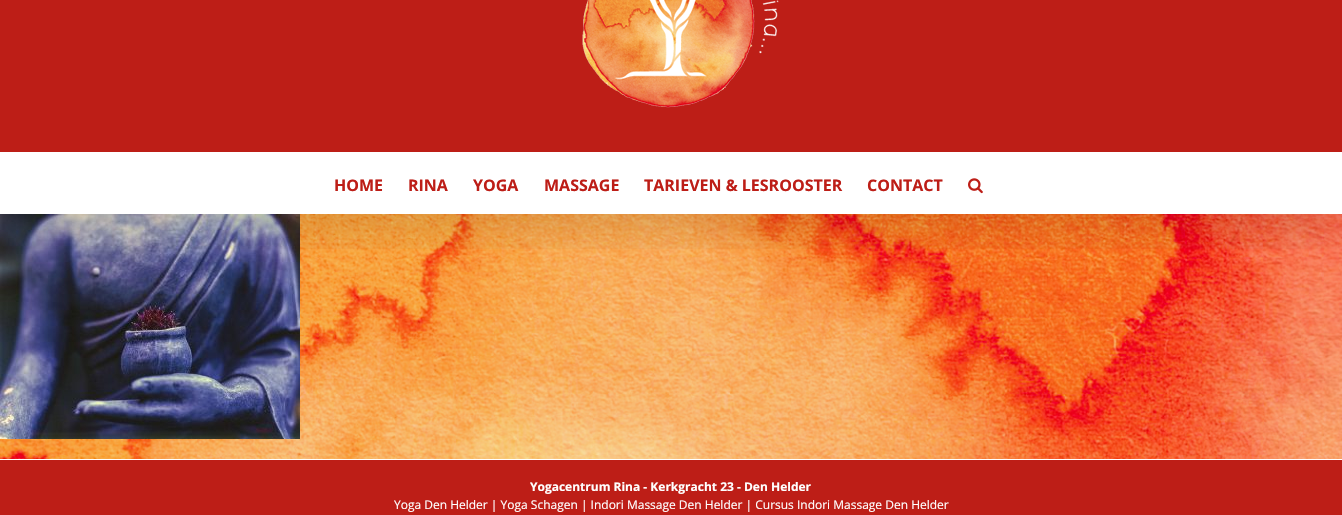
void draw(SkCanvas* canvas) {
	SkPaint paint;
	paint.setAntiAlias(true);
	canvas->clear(0xffffffff);
	canvas->drawImageRect(SkImages::DeferredFromEncodedData(SkData::MakeFromFileName("img3.png")), SkRect::MakeXYWH(0, 214, 1342, 245), SkSamplingOptions());
	canvas->drawImageRect(SkImages::DeferredFromEncodedData(SkData::MakeFromFileName("img4.png")), SkRect::MakeXYWH(0, 214, 300, 225), SkSamplingOptions());
	canvas->save();
	canvas->clipRect(SkRect::MakeXYWH(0, 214, 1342, 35));
	paint.setColor(0x24000000);
	paint.setMaskFilter(SkMaskFilter::MakeBlur(kNormal_SkBlurStyle, 25));
	canvas->drawRect(SkRect::MakeXYWH(2, -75, 1338, 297), paint);
	paint.setMaskFilter(nullptr);
	canvas->restore();
	paint.setColor(0xffbd1e17);
	canvas->drawRect(SkRect::MakeXYWH(0, 0, 1342, 152), paint);
	canvas->drawImageRect(SkImages::DeferredFromEncodedData(SkData::MakeFromFileName("img1.png")), SkRect::MakeXYWH(582, 0, 197, 108), SkSamplingOptions());
	SkFont f1(fontMgr->matchFamilyStyle("Open Sans", SkFontStyle::Bold()), 16);
	f1.setSubpixel(true);
	canvas->drawString("HOME", 334, 191, f1, paint);
	canvas->drawString("RINA", 408, 191, f1, paint);
	canvas->drawString("YOGA", 473, 191, f1, paint);
	canvas->drawString("MASSAGE", 544, 191, f1, paint);
	canvas->drawString("TARIEVEN & LESROOSTER", 644, 191, f1, paint);
	canvas->drawString("CONTACT", 867, 191, f1, paint);
	canvas->drawImageRect(SkImages::DeferredFromEncodedData(SkData::MakeFromFileName("img2.png")), SkRect::MakeXYWH(968, 178, 15, 16), SkSamplingOptions());
	canvas->drawRect(SkRect::MakeXYWH(0, 460, 1342, 55), paint);
	SkFont f2(fontMgr->matchFamilyStyle("Open Sans", SkFontStyle::Bold()), 12);
	f2.setSubpixel(true);
	paint.setColor(0xffffffff);
	canvas->drawString("Yogacentrum Rina - Kerkgracht 23 - Den Helder", 530, 491, f2, paint);
	SkFont f3(fontMgr->matchFamilyStyle("Open Sans", SkFontStyle::Normal()), 12);
	f3.setSubpixel(true);
	canvas->drawString("Yoga Den Helder | Yoga Schagen | Indori Massage Den Helder | Cursus Indori Massage Den Helder", 394, 509, f3, paint);
}
